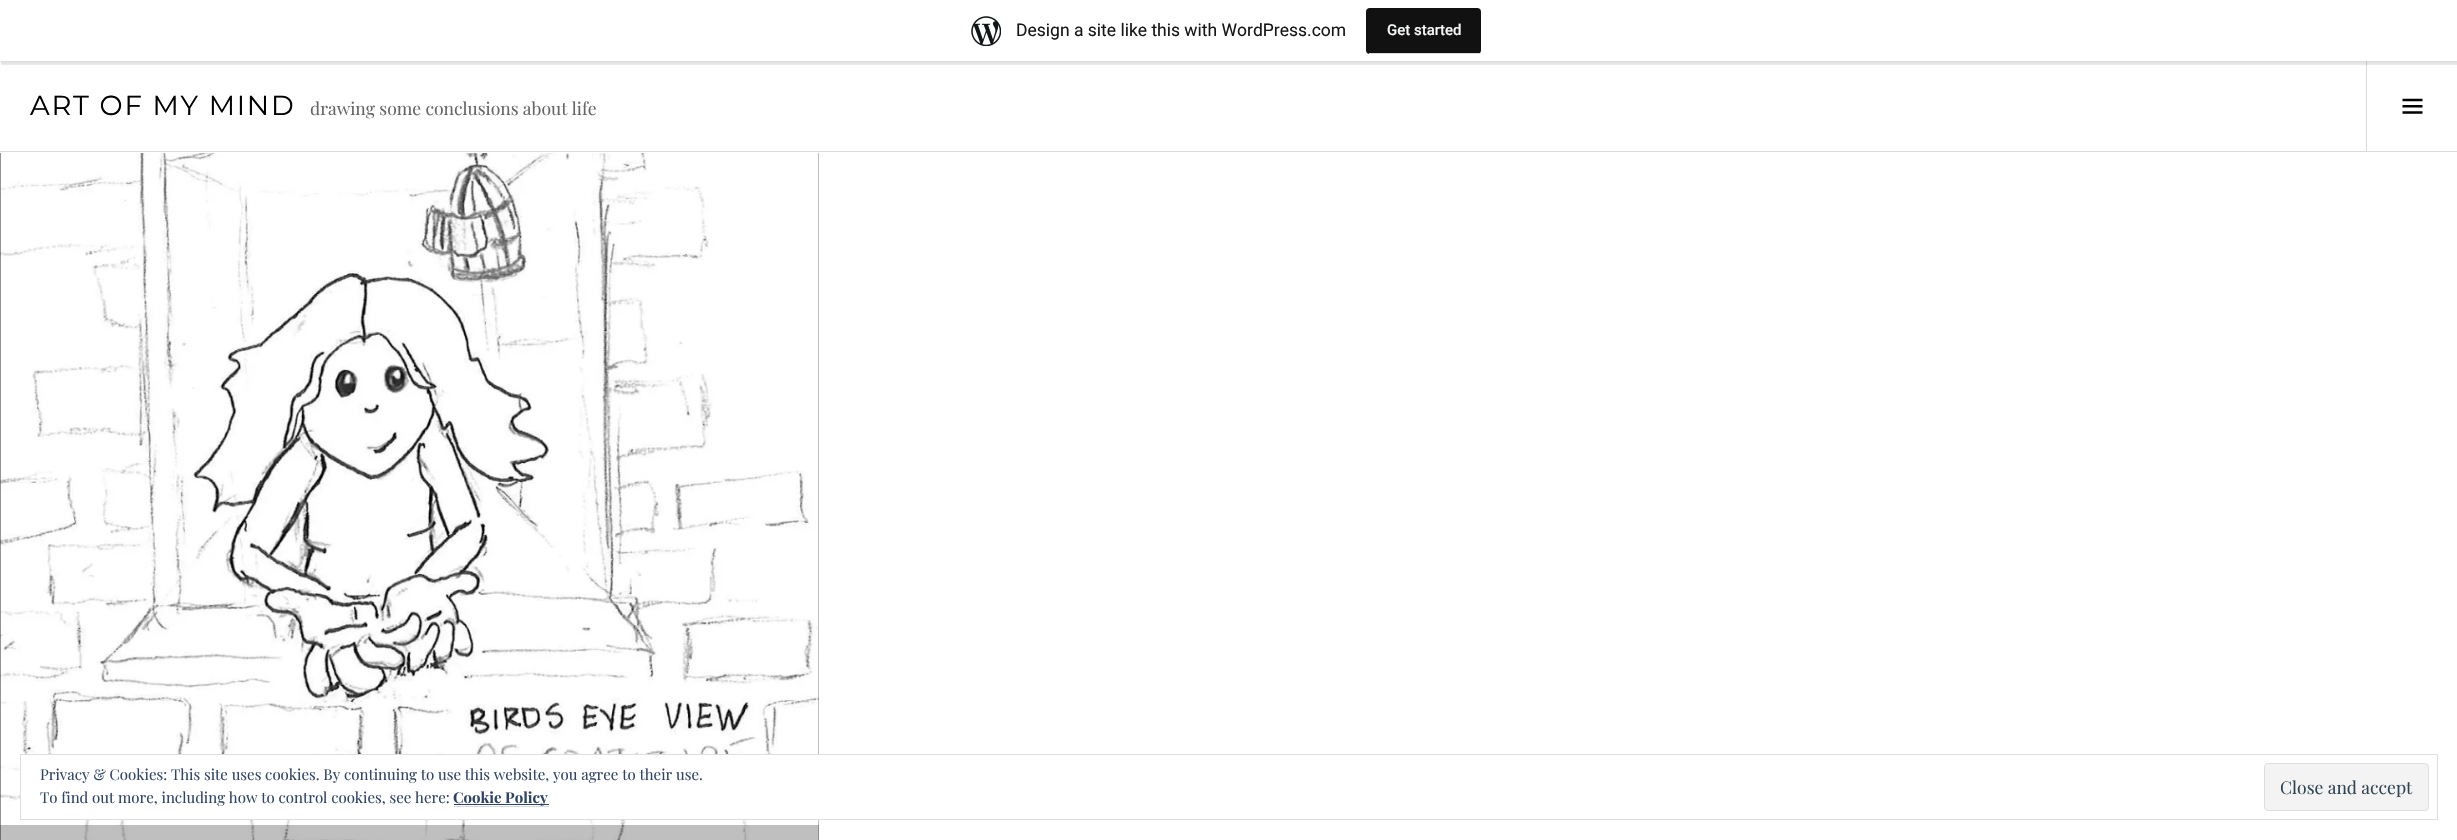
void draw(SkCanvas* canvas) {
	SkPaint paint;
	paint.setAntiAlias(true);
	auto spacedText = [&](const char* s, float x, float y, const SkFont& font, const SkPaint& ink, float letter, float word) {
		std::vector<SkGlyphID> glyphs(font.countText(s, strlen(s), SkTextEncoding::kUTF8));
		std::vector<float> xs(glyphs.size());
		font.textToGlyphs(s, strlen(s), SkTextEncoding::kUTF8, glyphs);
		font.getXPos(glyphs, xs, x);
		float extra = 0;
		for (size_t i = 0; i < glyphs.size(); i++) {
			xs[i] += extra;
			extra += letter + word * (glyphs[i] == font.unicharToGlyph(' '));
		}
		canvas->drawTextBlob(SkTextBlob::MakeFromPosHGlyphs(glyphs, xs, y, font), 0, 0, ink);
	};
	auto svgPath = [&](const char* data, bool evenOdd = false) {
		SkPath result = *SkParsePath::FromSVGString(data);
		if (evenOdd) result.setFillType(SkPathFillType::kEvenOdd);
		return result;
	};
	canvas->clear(0xffffffff);
	paint.setColor(0xffd9d9d9);
	canvas->drawRect(SkRect::MakeXYWH(2366, 61, 1, 90), paint);
	paint.setColor(0x0d000000);
	paint.setMaskFilter(SkMaskFilter::MakeBlur(kNormal_SkBlurStyle, 1));
	canvas->drawRect(SkRect::MakeXYWH(0, 1, 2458, 62), paint);
	paint.setMaskFilter(nullptr);
	paint.setColor(0x14000000);
	canvas->drawPath(svgPath("M1 61V65H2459V4H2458V61Z"), paint);
	paint.setColor(0xffffffff);
	canvas->drawRect(SkRect::MakeXYWH(0, 0, 2457, 61), paint);
	canvas->drawImageRect(SkImages::DeferredFromEncodedData(SkData::MakeFromFileName("img1.png")), SkRect::MakeXYWH(971, 16, 30, 30), SkSamplingOptions());
	SkFont f1(fontMgr->matchFamilyStyle("Roboto", SkFontStyle::Normal()), 17.5);
	f1.setSubpixel(true);
	paint.setColor(0xff171717);
	canvas->drawString("Design a site like this with WordPress.com", 1016, 36, f1, paint);
	paint.setColor(0xff111111);
	canvas->drawRoundRect(SkRect::MakeXYWH(1366, 8, 115, 46), 4, 4, paint);
	paint.setColor(0xffd9d9d9);
	canvas->drawRect(SkRect::MakeXYWH(1369, 53, 111, 1), paint);
	SkFont f2(fontMgr->matchFamilyStyle("Roboto", SkFontStyle(500, SkFontStyle::kNormal_Width, SkFontStyle::kUpright_Slant)), 15);
	f2.setSubpixel(true);
	paint.setColor(0xfff6f7f7);
	canvas->drawString("Get started", 1387, 35, f2, paint);
	paint.setColor(0xffd9d9d9);
	canvas->drawRect(SkRect::MakeXYWH(0, 151, 2457, 1), paint);
	SkFont f3(fontMgr->matchFamilyStyle("Montserrat", SkFontStyle::Normal()), 27.5);
	f3.setSubpixel(true);
	paint.setColor(0xff000000);
	spacedText("ART OF MY MIND", 30, 115, f3, paint, 1.75, 0);
	SkFont f4(fontMgr->matchFamilyStyle("Playfair Display", SkFontStyle::Normal()), 17.5);
	f4.setSubpixel(true);
	paint.setColor(0xff666666);
	canvas->drawString("drawing some conclusions about life", 310, 115, f4, paint);
	canvas->drawImageRect(SkImages::DeferredFromEncodedData(SkData::MakeFromFileName("img2.png")), SkRect::MakeXYWH(2402, 98, 21, 16), SkSamplingOptions());
	paint.setColor(0xff000000);
	canvas->drawRect(SkRect::MakeXYWH(0, 153, 819, 687), paint);
	canvas->drawImageRect(SkImages::DeferredFromEncodedData(SkData::MakeFromFileName("img3.png")), SkRect::MakeXYWH(0, 153, 819, 687), SkSamplingOptions());
	paint.setColor(0x40000000);
	canvas->drawRect(SkRect::MakeXYWH(0, 825, 819, 15), paint);
	paint.setColor(0xffffffff);
	canvas->drawRect(SkRect::MakeXYWH(21, 755, 798, 64), paint);
	paint.setStroke(true);
	paint.setStrokeWidth(1);
	paint.setColor(0xffdedede);
	canvas->drawRect(SkRect::MakeXYWH(20.5, 754.5, 2417, 65), paint);
	SkFont f5(fontMgr->matchFamilyStyle("Playfair Display", SkFontStyle::Normal()), 15);
	f5.setSubpixel(true);
	paint.setStroke(false);
	paint.setColor(0xff2e4467);
	canvas->drawString("Privacy & Cookies: This site uses cookies. By continuing to use this website, you agree to their use.", 40, 780, f5, paint);
	canvas->drawString("To find out more, including how to control cookies, see here:", 40, 803, f5, paint);
	canvas->drawRect(SkRect::MakeXYWH(454, 804, 95, 1), paint);
	SkFont f6(fontMgr->matchFamilyStyle("Playfair Display", SkFontStyle::Bold()), 15);
	f6.setSubpixel(true);
	canvas->drawString("Cookie Policy", 453, 803, f6, paint);
	paint.setColor(0xffd9d9d9);
	canvas->drawRect(SkRect::MakeXYWH(454, 806, 95, 1), paint);
	paint.setColor(0xfff3f3f3);
	canvas->drawRoundRect(SkRect::MakeXYWH(2264.5, 763.5, 164, 47), 3.5, 3.5, paint);
	paint.setStroke(true);
	paint.setColor(0xffdedede);
	canvas->drawRoundRect(SkRect::MakeXYWH(2264.5, 763.5, 164, 47), 3.5, 3.5, paint);
	paint.setStroke(false);
	paint.setColor(0xff2e4453);
	canvas->drawString("Close and accept", 2280, 794, f4, paint);
}
